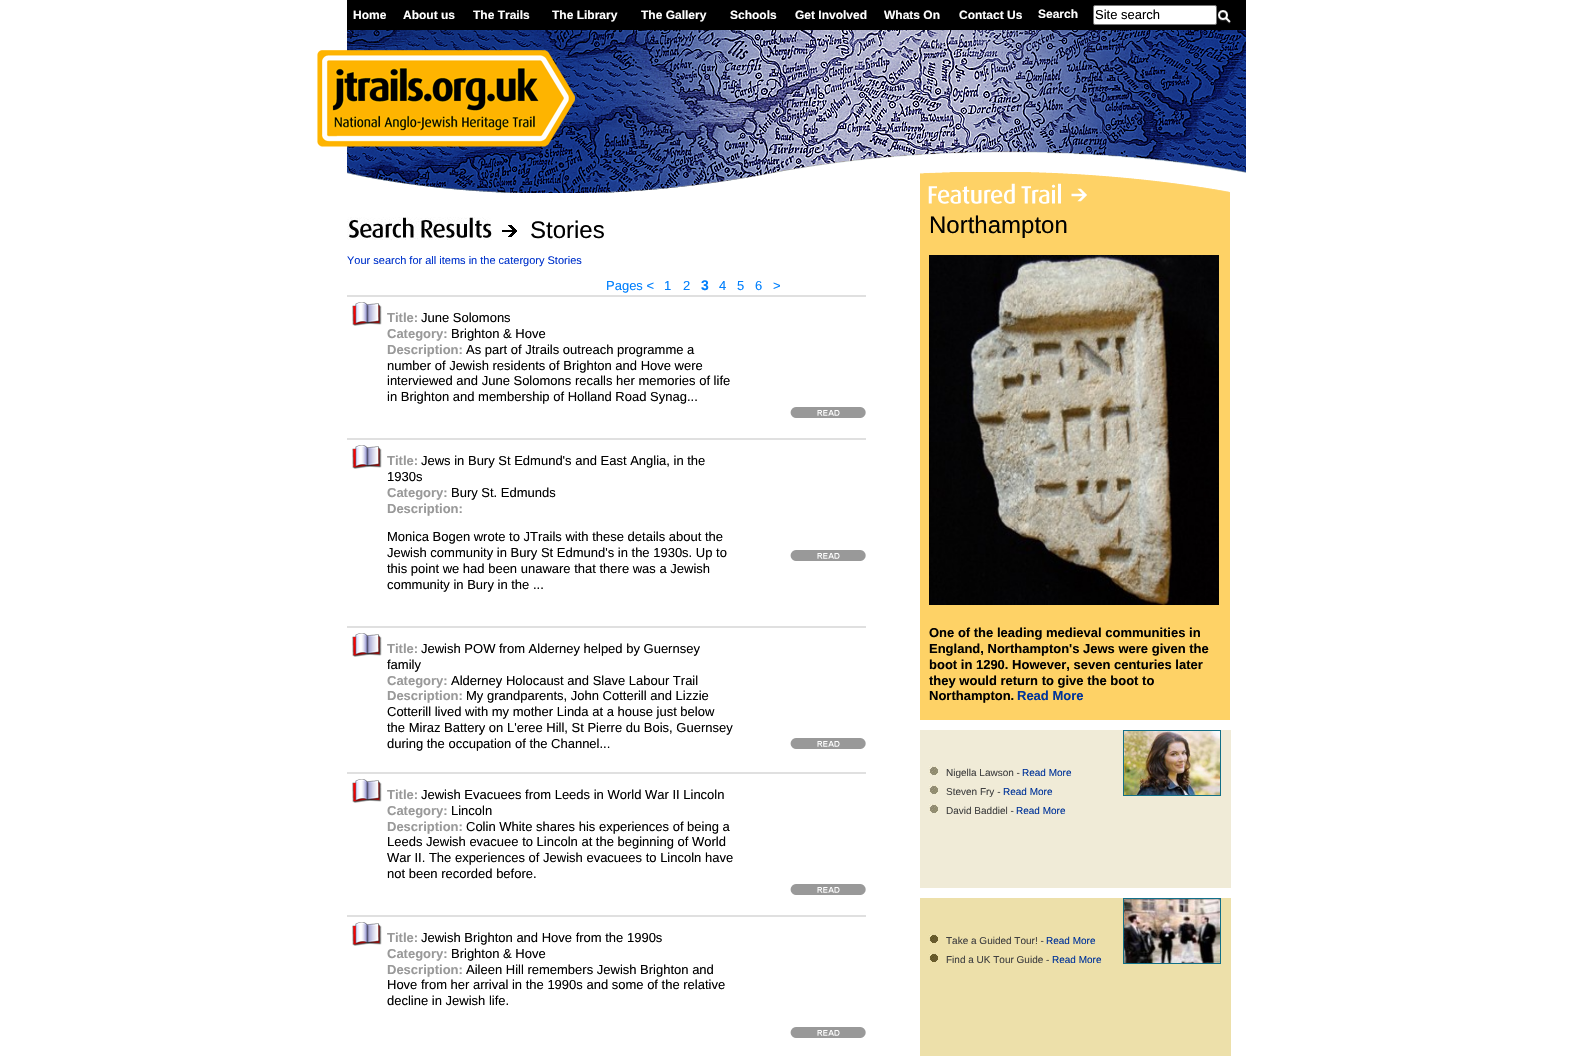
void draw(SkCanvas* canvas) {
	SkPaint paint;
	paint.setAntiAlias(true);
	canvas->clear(0xffffffff);
	paint.setColor(0xff000000);
	canvas->drawRect(SkRect::MakeXYWH(347, 0, 899, 30), paint);
	SkFont f1(fontMgr->matchFamilyStyle("Liberation Sans", SkFontStyle::Bold()), 12);
	f1.setSubpixel(true);
	paint.setColor(0xffffffff);
	canvas->drawString("Home", 353, 19, f1, paint);
	canvas->drawString("About us", 403, 19, f1, paint);
	canvas->drawString("The Trails", 473, 19, f1, paint);
	canvas->drawString("The Library", 552, 19, f1, paint);
	canvas->drawString("The Gallery", 641, 19, f1, paint);
	canvas->drawString("Schools", 730, 19, f1, paint);
	canvas->drawString("Get Involved", 795, 19, f1, paint);
	canvas->drawString("Whats On", 884, 19, f1, paint);
	canvas->drawString("Contact Us", 959, 19, f1, paint);
	canvas->drawString("Search", 1038, 18, f1, paint);
	canvas->drawRoundRect(SkRect::MakeXYWH(1093.5, 5.5, 123, 19), 1.5, 1.5, paint);
	paint.setStroke(true);
	paint.setStrokeWidth(1);
	paint.setColor(0xff767676);
	canvas->drawRoundRect(SkRect::MakeXYWH(1093.5, 5.5, 123, 19), 1.5, 1.5, paint);
	SkFont f2(fontMgr->matchFamilyStyle("Liberation Sans", SkFontStyle::Normal()), 13);
	f2.setSubpixel(true);
	paint.setStroke(false);
	paint.setColor(0xff000000);
	canvas->drawString("Site search", 1095, 19, f2, paint);
	canvas->drawImageRect(SkImages::DeferredFromEncodedData(SkData::MakeFromFileName("img1.png")), SkRect::MakeXYWH(1218, 10, 13, 14), SkSamplingOptions());
	canvas->drawImageRect(SkImages::DeferredFromEncodedData(SkData::MakeFromFileName("img2.png")), SkRect::MakeXYWH(347, 30, 899, 163), SkSamplingOptions());
	canvas->drawImageRect(SkImages::DeferredFromEncodedData(SkData::MakeFromFileName("img3.png")), SkRect::MakeXYWH(317, 50, 258, 97), SkSamplingOptions());
	paint.setColor(0xffe0e0e0);
	canvas->drawRect(SkRect::MakeXYWH(347, 295, 519, 2), paint);
	canvas->drawImageRect(SkImages::DeferredFromEncodedData(SkData::MakeFromFileName("img4.png")), SkRect::MakeXYWH(347, 217, 145, 23), SkSamplingOptions());
	canvas->drawImageRect(SkImages::DeferredFromEncodedData(SkData::MakeFromFileName("img5.png")), SkRect::MakeXYWH(502, 225, 15, 12), SkSamplingOptions());
	SkFont f3(fontMgr->matchFamilyStyle("Liberation Sans", SkFontStyle::Normal()), 24);
	f3.setSubpixel(true);
	paint.setColor(0xff000000);
	canvas->drawString("Stories", 530, 238, f3, paint);
	SkFont f4(fontMgr->matchFamilyStyle("Liberation Sans", SkFontStyle::Normal()), 11);
	f4.setSubpixel(true);
	paint.setColor(0xff0033cc);
	canvas->drawString("Your search for all items in the catergory Stories", 347, 264, f4, paint);
	paint.setColor(0xff007ffd);
	canvas->drawString("Pages <", 606, 290, f2, paint);
	canvas->drawString("1", 664, 290, f2, paint);
	canvas->drawString("2", 683, 290, f2, paint);
	SkFont f5(fontMgr->matchFamilyStyle("Liberation Sans", SkFontStyle::Bold()), 14);
	f5.setSubpixel(true);
	canvas->drawString("3", 701, 290, f5, paint);
	canvas->drawString("4", 719, 290, f2, paint);
	canvas->drawString("5", 737, 290, f2, paint);
	canvas->drawString("6", 755, 290, f2, paint);
	canvas->drawString(">", 773, 290, f2, paint);
	paint.setColor(0xffe0e0e0);
	canvas->drawRect(SkRect::MakeXYWH(347, 438, 519, 2), paint);
	canvas->drawImageRect(SkImages::DeferredFromEncodedData(SkData::MakeFromFileName("img6.png")), SkRect::MakeXYWH(352, 302, 30, 24), SkSamplingOptions());
	SkFont f6(fontMgr->matchFamilyStyle("Liberation Sans", SkFontStyle::Bold()), 13);
	f6.setSubpixel(true);
	paint.setColor(0xff999999);
	canvas->drawString("Title:", 387, 322, f6, paint);
	paint.setColor(0xff000000);
	canvas->drawString("June Solomons", 421, 322, f2, paint);
	paint.setColor(0xff999999);
	canvas->drawString("Category:", 387, 338, f6, paint);
	paint.setColor(0xff000000);
	canvas->drawString("Brighton & Hove", 451, 338, f2, paint);
	paint.setColor(0xff999999);
	canvas->drawString("Description:", 387, 354, f6, paint);
	paint.setColor(0xff000000);
	canvas->drawString("As part of Jtrails outreach programme a", 466, 354, f2, paint);
	canvas->drawString("number of Jewish residents of Brighton and Hove were", 387, 370, f2, paint);
	canvas->drawString("interviewed and June Solomons recalls her memories of life", 387, 385, f2, paint);
	canvas->drawString("in Brighton and membership of Holland Road Synag...", 387, 401, f2, paint);
	canvas->drawImageRect(SkImages::DeferredFromEncodedData(SkData::MakeFromFileName("img7.png")), SkRect::MakeXYWH(790, 407, 76, 11), SkSamplingOptions());
	paint.setColor(0xffe0e0e0);
	canvas->drawRect(SkRect::MakeXYWH(347, 626, 519, 2), paint);
	canvas->drawImageRect(SkImages::DeferredFromEncodedData(SkData::MakeFromFileName("img6.png")), SkRect::MakeXYWH(352, 445, 30, 24), SkSamplingOptions());
	paint.setColor(0xff999999);
	canvas->drawString("Title:", 387, 465, f6, paint);
	paint.setColor(0xff000000);
	canvas->drawString("Jews in Bury St Edmund's and East Anglia, in the", 421, 465, f2, paint);
	canvas->drawString("1930s", 387, 481, f2, paint);
	paint.setColor(0xff999999);
	canvas->drawString("Category:", 387, 497, f6, paint);
	paint.setColor(0xff000000);
	canvas->drawString("Bury St. Edmunds", 451, 497, f2, paint);
	paint.setColor(0xff999999);
	canvas->drawString("Description:", 387, 513, f6, paint);
	paint.setColor(0xff000000);
	canvas->drawString("Monica Bogen wrote to JTrails with these details about the", 387, 541, f2, paint);
	canvas->drawString("Jewish community in Bury St Edmund's in the 1930s. Up to", 387, 557, f2, paint);
	canvas->drawString("this point we had been unaware that there was a Jewish", 387, 573, f2, paint);
	canvas->drawString("community in Bury in the ...", 387, 589, f2, paint);
	canvas->drawImageRect(SkImages::DeferredFromEncodedData(SkData::MakeFromFileName("img7.png")), SkRect::MakeXYWH(790, 550, 76, 11), SkSamplingOptions());
	paint.setColor(0xffe0e0e0);
	canvas->drawRect(SkRect::MakeXYWH(347, 772, 519, 2), paint);
	canvas->drawImageRect(SkImages::DeferredFromEncodedData(SkData::MakeFromFileName("img6.png")), SkRect::MakeXYWH(352, 633, 30, 24), SkSamplingOptions());
	paint.setColor(0xff999999);
	canvas->drawString("Title:", 387, 653, f6, paint);
	paint.setColor(0xff000000);
	canvas->drawString("Jewish POW from Alderney helped by Guernsey", 421, 653, f2, paint);
	canvas->drawString("family", 387, 669, f2, paint);
	paint.setColor(0xff999999);
	canvas->drawString("Category:", 387, 685, f6, paint);
	paint.setColor(0xff000000);
	canvas->drawString("Alderney Holocaust and Slave Labour Trail", 451, 685, f2, paint);
	paint.setColor(0xff999999);
	canvas->drawString("Description:", 387, 700, f6, paint);
	paint.setColor(0xff000000);
	canvas->drawString("My grandparents, John Cotterill and Lizzie", 466, 700, f2, paint);
	canvas->drawString("Cotterill lived with my mother Linda at a house just below", 387, 716, f2, paint);
	canvas->drawString("the Miraz Battery on L'eree Hill, St Pierre du Bois, Guernsey", 387, 732, f2, paint);
	canvas->drawString("during the occupation of the Channel...", 387, 748, f2, paint);
	canvas->drawImageRect(SkImages::DeferredFromEncodedData(SkData::MakeFromFileName("img7.png")), SkRect::MakeXYWH(790, 738, 76, 11), SkSamplingOptions());
	paint.setColor(0xffe0e0e0);
	canvas->drawRect(SkRect::MakeXYWH(347, 915, 519, 2), paint);
	canvas->drawImageRect(SkImages::DeferredFromEncodedData(SkData::MakeFromFileName("img6.png")), SkRect::MakeXYWH(352, 779, 30, 24), SkSamplingOptions());
	paint.setColor(0xff999999);
	canvas->drawString("Title:", 387, 799, f6, paint);
	paint.setColor(0xff000000);
	canvas->drawString("Jewish Evacuees from Leeds in World War II Lincoln", 421, 799, f2, paint);
	paint.setColor(0xff999999);
	canvas->drawString("Category:", 387, 815, f6, paint);
	paint.setColor(0xff000000);
	canvas->drawString("Lincoln", 451, 815, f2, paint);
	paint.setColor(0xff999999);
	canvas->drawString("Description:", 387, 831, f6, paint);
	paint.setColor(0xff000000);
	canvas->drawString("Colin White shares his experiences of being a", 466, 831, f2, paint);
	canvas->drawString("Leeds Jewish evacuee to Lincoln at the beginning of World", 387, 846, f2, paint);
	canvas->drawString("War II. The experiences of Jewish evacuees to Lincoln have", 387, 862, f2, paint);
	canvas->drawString("not been recorded before.", 387, 878, f2, paint);
	canvas->drawImageRect(SkImages::DeferredFromEncodedData(SkData::MakeFromFileName("img7.png")), SkRect::MakeXYWH(790, 884, 76, 11), SkSamplingOptions());
	canvas->drawImageRect(SkImages::DeferredFromEncodedData(SkData::MakeFromFileName("img6.png")), SkRect::MakeXYWH(352, 922, 30, 24), SkSamplingOptions());
	paint.setColor(0xff999999);
	canvas->drawString("Title:", 387, 942, f6, paint);
	paint.setColor(0xff000000);
	canvas->drawString("Jewish Brighton and Hove from the 1990s", 421, 942, f2, paint);
	paint.setColor(0xff999999);
	canvas->drawString("Category:", 387, 958, f6, paint);
	paint.setColor(0xff000000);
	canvas->drawString("Brighton & Hove", 451, 958, f2, paint);
	paint.setColor(0xff999999);
	canvas->drawString("Description:", 387, 974, f6, paint);
	paint.setColor(0xff000000);
	canvas->drawString("Aileen Hill remembers Jewish Brighton and", 466, 974, f2, paint);
	canvas->drawString("Hove from her arrival in the 1990s and some of the relative", 387, 989, f2, paint);
	canvas->drawString("decline in Jewish life.", 387, 1005, f2, paint);
	canvas->drawImageRect(SkImages::DeferredFromEncodedData(SkData::MakeFromFileName("img7.png")), SkRect::MakeXYWH(790, 1027, 76, 11), SkSamplingOptions());
	canvas->drawImageRect(SkImages::DeferredFromEncodedData(SkData::MakeFromFileName("img8.png")), SkRect::MakeXYWH(920, 172, 310, 32), SkSamplingOptions());
	paint.setColor(0xfffed266);
	canvas->drawRect(SkRect::MakeXYWH(920, 204, 310, 516), paint);
	paint.setColor(0xff000000);
	canvas->drawString("Northampton", 929, 233, f3, paint);
	canvas->drawImageRect(SkImages::DeferredFromEncodedData(SkData::MakeFromFileName("img9.png")), SkRect::MakeXYWH(929, 255, 290, 350), SkSamplingOptions());
	canvas->drawString("One of the leading medieval communities in", 929, 637, f6, paint);
	canvas->drawString("England, Northampton's Jews were given the", 929, 653, f6, paint);
	canvas->drawString("boot in 1290. However, seven centuries later", 929, 669, f6, paint);
	canvas->drawString("they would return to give the boot to", 929, 685, f6, paint);
	canvas->drawString("Northampton.", 929, 700, f6, paint);
	paint.setColor(0xff003399);
	canvas->drawString("Read More", 1017, 700, f6, paint);
	paint.setColor(0xfff0ebd7);
	canvas->drawRect(SkRect::MakeXYWH(920, 730, 311, 158), paint);
	canvas->drawImageRect(SkImages::DeferredFromEncodedData(SkData::MakeFromFileName("img10.png")), SkRect::MakeXYWH(929, 766, 10, 10), SkSamplingOptions());
	SkFont f7(fontMgr->matchFamilyStyle("Liberation Sans", SkFontStyle::Normal()), 10);
	f7.setSubpixel(true);
	paint.setColor(0xff404040);
	canvas->drawString("Nigella Lawson -", 946, 776, f7, paint);
	paint.setColor(0xff003399);
	canvas->drawString("Read More", 1022, 776, f7, paint);
	canvas->drawImageRect(SkImages::DeferredFromEncodedData(SkData::MakeFromFileName("img10.png")), SkRect::MakeXYWH(929, 785, 10, 10), SkSamplingOptions());
	paint.setColor(0xff404040);
	canvas->drawString("Steven Fry -", 946, 795, f7, paint);
	paint.setColor(0xff003399);
	canvas->drawString("Read More", 1003, 795, f7, paint);
	canvas->drawImageRect(SkImages::DeferredFromEncodedData(SkData::MakeFromFileName("img10.png")), SkRect::MakeXYWH(929, 804, 10, 10), SkSamplingOptions());
	paint.setColor(0xff404040);
	canvas->drawString("David Baddiel -", 946, 814, f7, paint);
	paint.setColor(0xff003399);
	canvas->drawString("Read More", 1016, 814, f7, paint);
	paint.setStroke(true);
	paint.setColor(0xff127088);
	canvas->drawRect(SkRect::MakeXYWH(1123.5, 730.5, 97, 65), paint);
	canvas->drawImageRect(SkImages::DeferredFromEncodedData(SkData::MakeFromFileName("img11.png")), SkRect::MakeXYWH(1124, 731, 96, 64), SkSamplingOptions());
	paint.setStroke(false);
	paint.setColor(0xffede0aa);
	canvas->drawRect(SkRect::MakeXYWH(920, 898, 311, 158), paint);
	canvas->drawImageRect(SkImages::DeferredFromEncodedData(SkData::MakeFromFileName("img12.png")), SkRect::MakeXYWH(929, 934, 9, 9), SkSamplingOptions());
	paint.setColor(0xff404040);
	canvas->drawString("Take a Guided Tour! -", 946, 944, f7, paint);
	paint.setColor(0xff003399);
	canvas->drawString("Read More", 1046, 944, f7, paint);
	canvas->drawImageRect(SkImages::DeferredFromEncodedData(SkData::MakeFromFileName("img12.png")), SkRect::MakeXYWH(929, 953, 9, 9), SkSamplingOptions());
	paint.setColor(0xff404040);
	canvas->drawString("Find a UK Tour Guide -", 946, 963, f7, paint);
	paint.setColor(0xff003399);
	canvas->drawString("Read More", 1052, 963, f7, paint);
	paint.setStroke(true);
	paint.setColor(0xff127088);
	canvas->drawRect(SkRect::MakeXYWH(1123.5, 898.5, 97, 65), paint);
	canvas->drawImageRect(SkImages::DeferredFromEncodedData(SkData::MakeFromFileName("img13.png")), SkRect::MakeXYWH(1124, 899, 96, 64), SkSamplingOptions());
}
